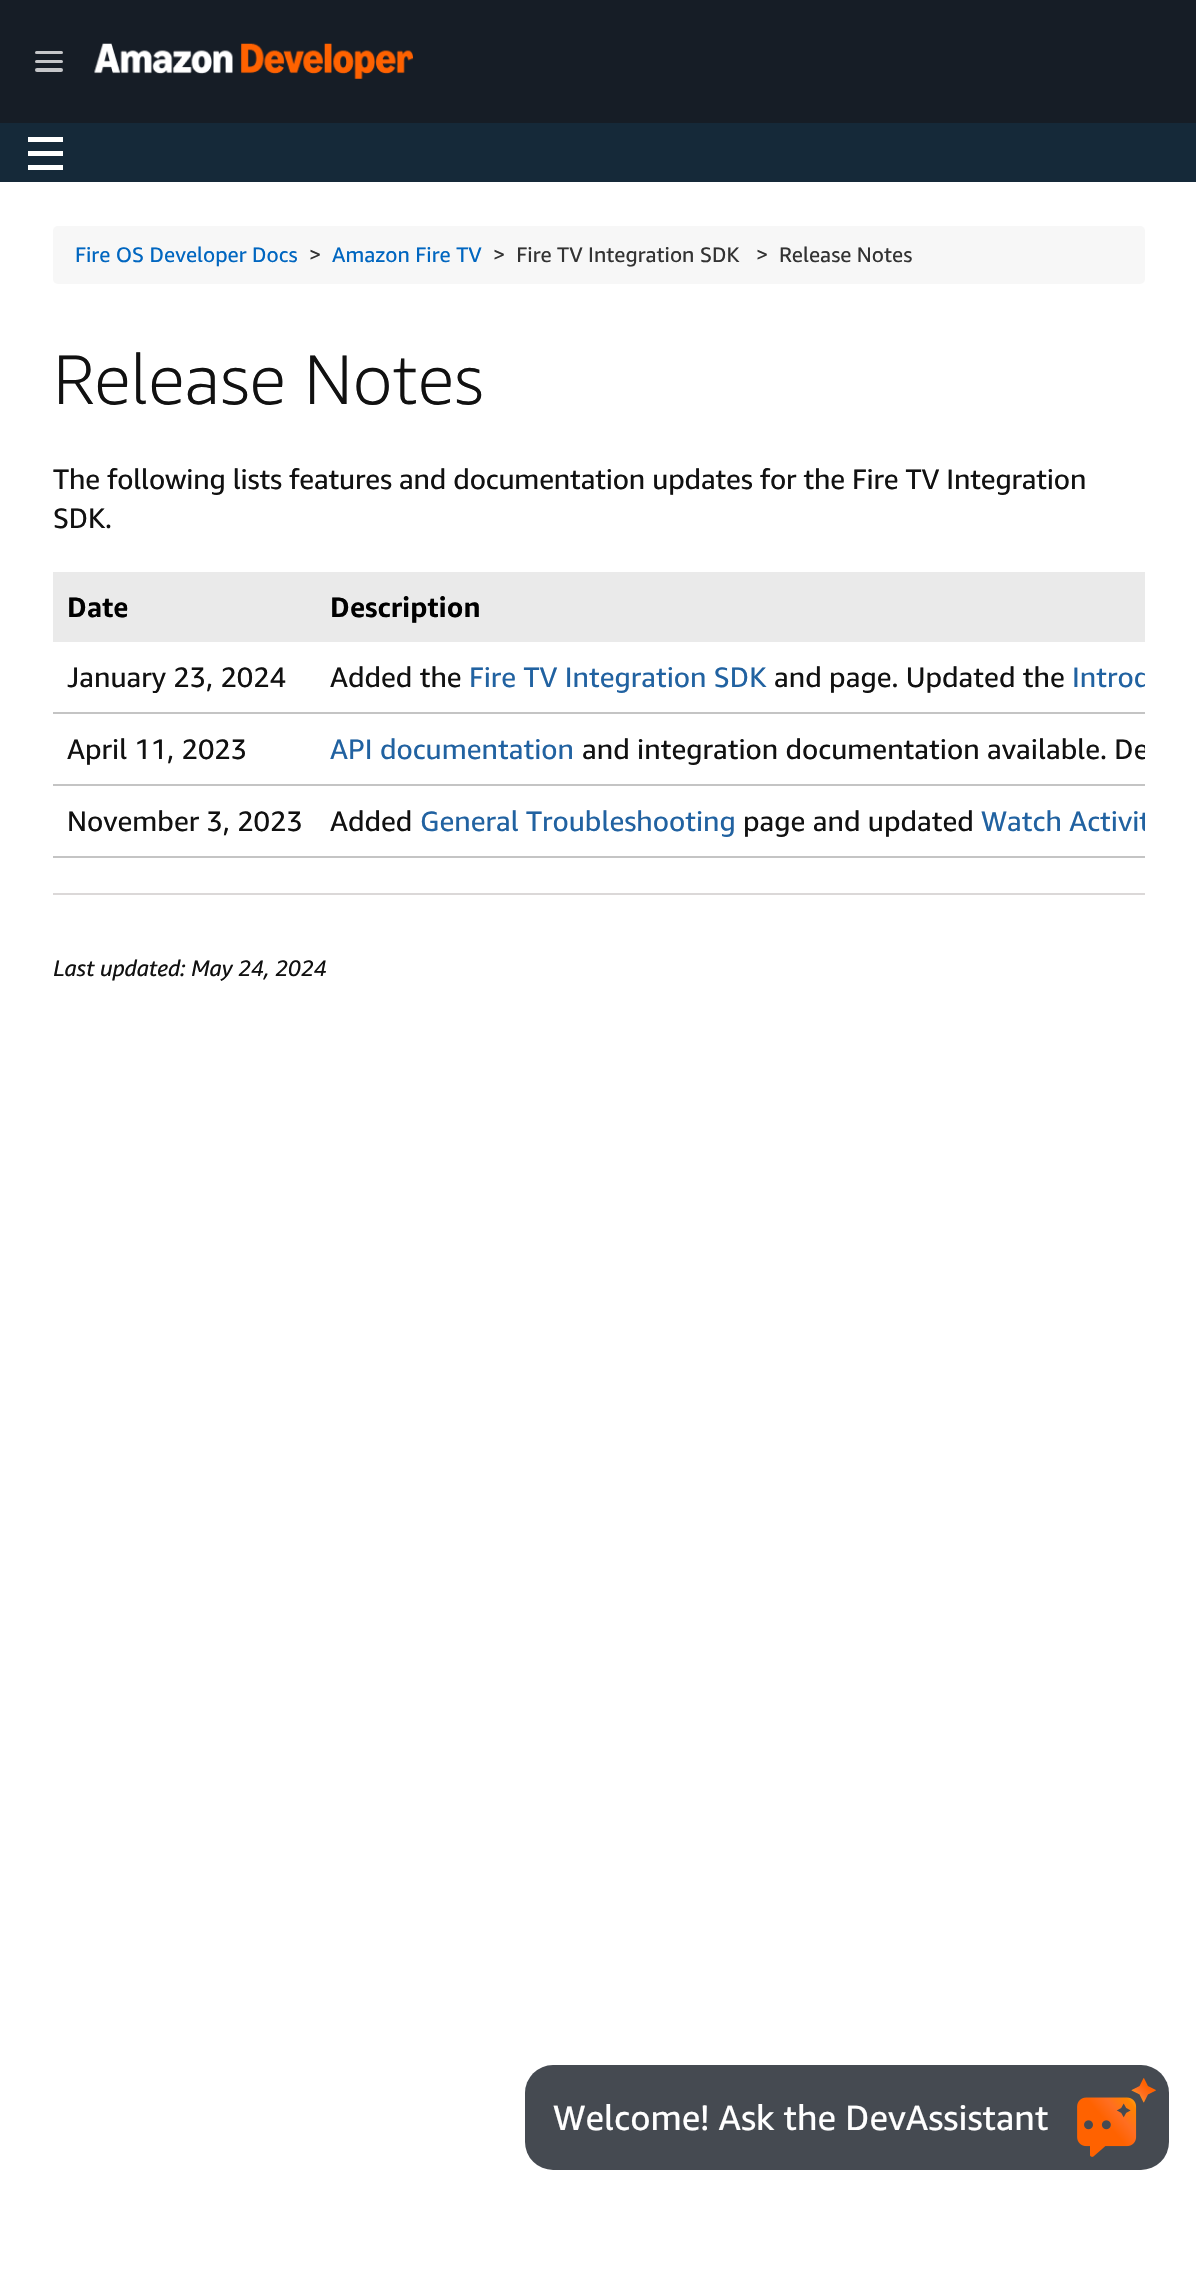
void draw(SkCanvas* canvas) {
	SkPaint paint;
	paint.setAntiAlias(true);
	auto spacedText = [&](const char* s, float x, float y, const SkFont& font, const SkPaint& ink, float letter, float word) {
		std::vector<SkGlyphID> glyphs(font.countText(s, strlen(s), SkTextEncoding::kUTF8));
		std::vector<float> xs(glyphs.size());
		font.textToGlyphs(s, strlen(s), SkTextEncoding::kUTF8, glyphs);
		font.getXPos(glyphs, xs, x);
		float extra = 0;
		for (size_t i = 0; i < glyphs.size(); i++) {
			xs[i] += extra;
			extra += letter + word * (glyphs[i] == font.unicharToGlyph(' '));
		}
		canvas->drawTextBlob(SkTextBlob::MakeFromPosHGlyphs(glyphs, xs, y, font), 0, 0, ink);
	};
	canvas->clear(0xff152939);
	paint.setColor(0xff161d26);
	canvas->drawRect(SkRect::MakeXYWH(0, 0, 1196, 123), paint);
	paint.setColor(0xffc5c6c9);
	canvas->drawRoundRect(SkRect::MakeXYWH(35, 51, 28, 3), 1.5, 1.5, paint);
	canvas->drawRoundRect(SkRect::MakeXYWH(35, 60, 28, 3), 1.5, 1.5, paint);
	canvas->drawRoundRect(SkRect::MakeXYWH(35, 68, 28, 4), 2, 2, paint);
	canvas->drawImageRect(SkImages::DeferredFromEncodedData(SkData::MakeFromFileName("img1.png")), SkRect::MakeXYWH(94, 43, 319, 36), SkSamplingOptions());
	paint.setColor(0xffffffff);
	canvas->drawRect(SkRect::MakeXYWH(28, 137, 35, 5), paint);
	canvas->drawRect(SkRect::MakeXYWH(28, 151, 35, 5), paint);
	canvas->drawRect(SkRect::MakeXYWH(28, 165, 35, 5), paint);
	canvas->drawRect(SkRect::MakeXYWH(0, 182, 1196, 2093), paint);
	paint.setColor(0xfff7f7f7);
	canvas->drawRoundRect(SkRect::MakeXYWH(53, 226, 1092, 58), 5, 5, paint);
	SkFont f1(fontMgr->matchFamilyStyle("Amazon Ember", SkFontStyle::Normal()), 21);
	f1.setSubpixel(true);
	paint.setColor(0xff0066c0);
	canvas->drawString("Fire OS Developer Docs", 75, 262, f1, paint);
	paint.setColor(0xff333333);
	canvas->drawString(">", 309, 262, f1, paint);
	paint.setColor(0xff0066c0);
	canvas->drawString("Amazon Fire TV", 332, 262, f1, paint);
	paint.setColor(0xff333333);
	canvas->drawString(">  Fire TV Integration SDK   >", 493, 262, f1, paint);
	canvas->drawString("Release Notes", 779, 262, f1, paint);
	SkFont f2(fontMgr->matchFamilyStyle("Amazon Ember", SkFontStyle(300, SkFontStyle::kNormal_Width, SkFontStyle::kUpright_Slant)), 70);
	f2.setSubpixel(true);
	paint.setColor(0xff111111);
	canvas->drawString("Release Notes", 53, 404, f2, paint);
	SkFont f3(fontMgr->matchFamilyStyle("Amazon Ember", SkFontStyle::Normal()), 28);
	f3.setSubpixel(true);
	spacedText("The following lists features and documentation updates for the Fire TV Integration", 53, 489, f3, paint, -0.18, 0);
	spacedText("SDK.", 53, 528, f3, paint, -0.18, 0);
	paint.setColor(0xffeaeaea);
	canvas->drawRect(SkRect::MakeXYWH(53, 572, 1092, 70), paint);
	SkFont f4(fontMgr->matchFamilyStyle("Amazon Ember", SkFontStyle::Bold()), 28);
	f4.setSubpixel(true);
	paint.setColor(0xff000000);
	canvas->drawString("Date", 67, 617, f4, paint);
	canvas->drawString("Description", 330, 617, f4, paint);
	paint.setColor(0xffc4c4c4);
	canvas->drawRect(SkRect::MakeXYWH(53, 712, 1092, 2), paint);
	paint.setColor(0xff111111);
	canvas->drawString("January 23, 2024", 67, 687, f3, paint);
	canvas->drawString("Added the", 330, 687, f3, paint);
	paint.setColor(0xff2162a1);
	canvas->drawString("Fire TV Integration SDK", 469, 687, f3, paint);
	paint.setColor(0xff111111);
	canvas->drawString("and page. Updated the", 774, 687, f3, paint);
	canvas->save();
	canvas->clipRect(SkRect::MakeXYWH(53, 572, 1092, 286));
	paint.setColor(0xff2162a1);
	canvas->drawString("Introd", 1072, 687, f3, paint);
	canvas->restore();
	paint.setColor(0xffc4c4c4);
	canvas->drawRect(SkRect::MakeXYWH(53, 784, 1092, 2), paint);
	paint.setColor(0xff111111);
	canvas->drawString("April 11, 2023", 67, 759, f3, paint);
	paint.setColor(0xff2162a1);
	canvas->drawString("API documentation", 330, 759, f3, paint);
	canvas->save();
	canvas->clipRect(SkRect::MakeXYWH(53, 572, 1092, 286));
	paint.setColor(0xff111111);
	canvas->drawString("and integration documentation available. De", 582, 759, f3, paint);
	canvas->restore();
	paint.setColor(0xffc4c4c4);
	canvas->drawRect(SkRect::MakeXYWH(53, 856, 1092, 2), paint);
	paint.setColor(0xff111111);
	canvas->drawString("November 3, 2023", 67, 831, f3, paint);
	canvas->drawString("Added", 330, 831, f3, paint);
	paint.setColor(0xff2162a1);
	canvas->drawString("General Troubleshooting", 420, 831, f3, paint);
	paint.setColor(0xff111111);
	canvas->drawString("page and updated", 743, 831, f3, paint);
	canvas->save();
	canvas->clipRect(SkRect::MakeXYWH(53, 572, 1092, 286));
	paint.setColor(0xff2162a1);
	canvas->drawString("Watch Activit", 981, 831, f3, paint);
	canvas->restore();
	paint.setColor(0xffdbd8d8);
	canvas->drawRect(SkRect::MakeXYWH(53, 893, 1092, 2), paint);
	SkFont f5(fontMgr->matchFamilyStyle("Amazon Ember", SkFontStyle::Italic()), 22.4);
	f5.setSubpixel(true);
	paint.setColor(0xff111111);
	spacedText("Last updated: May 24, 2024", 53, 976, f5, paint, -0.18, 0);
	paint.setColor(0xff454a51);
	canvas->drawRoundRect(SkRect::MakeXYWH(525, 2065, 644, 105), 28, 28, paint);
	SkFont f6(fontMgr->matchFamilyStyle("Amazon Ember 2", SkFontStyle::Normal()), 35);
	f6.setSubpixel(true);
	paint.setColor(0xffffffff);
	canvas->drawString("Welcome! Ask the DevAssistant", 553, 2130, f6, paint);
	canvas->drawImageRect(SkImages::DeferredFromEncodedData(SkData::MakeFromFileName("img2.png")), SkRect::MakeXYWH(1077, 2078, 79, 79), SkSamplingOptions());
}
